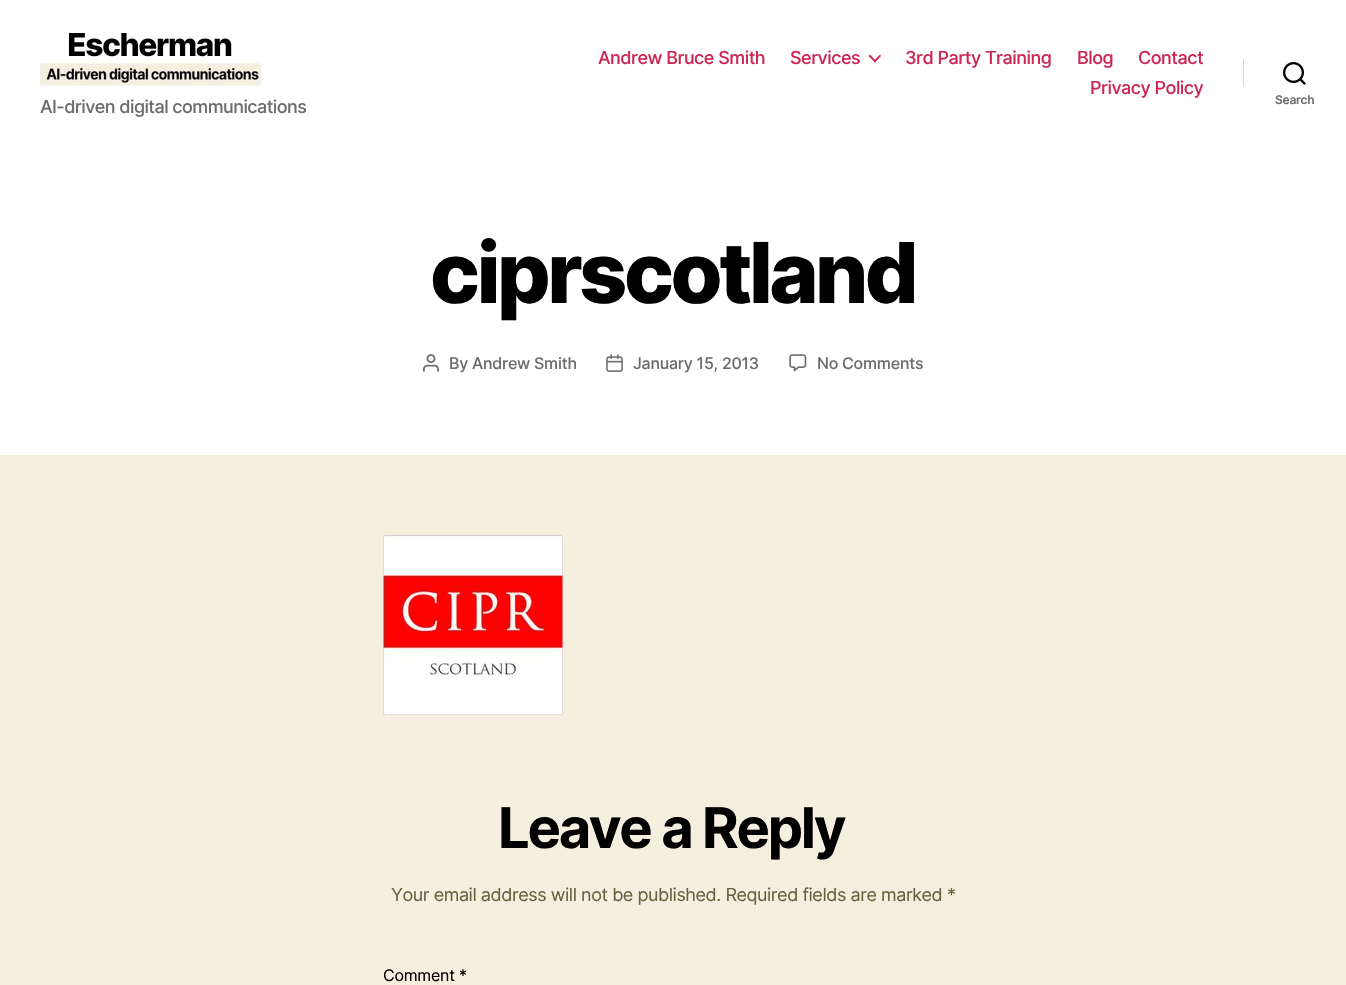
void draw(SkCanvas* canvas) {
	SkPaint paint;
	paint.setAntiAlias(true);
	auto spacedText = [&](const char* s, float x, float y, const SkFont& font, const SkPaint& ink, float letter, float word) {
		std::vector<SkGlyphID> glyphs(font.countText(s, strlen(s), SkTextEncoding::kUTF8));
		std::vector<float> xs(glyphs.size());
		font.textToGlyphs(s, strlen(s), SkTextEncoding::kUTF8, glyphs);
		font.getXPos(glyphs, xs, x);
		float extra = 0;
		for (size_t i = 0; i < glyphs.size(); i++) {
			xs[i] += extra;
			extra += letter + word * (glyphs[i] == font.unicharToGlyph(' '));
		}
		canvas->drawTextBlob(SkTextBlob::MakeFromPosHGlyphs(glyphs, xs, y, font), 0, 0, ink);
	};
	auto svgPath = [&](const char* data, bool evenOdd = false) {
		SkPath result = *SkParsePath::FromSVGString(data);
		if (evenOdd) result.setFillType(SkPathFillType::kEvenOdd);
		return result;
	};
	canvas->clear(0xfff5efe0);
	paint.setColor(0xffffffff);
	canvas->drawRect(SkRect::MakeXYWH(0, 0, 1346, 455), paint);
	SkFont f1(fontMgr->matchFamilyStyle("Inter", SkFontStyle(500, SkFontStyle::kNormal_Width, SkFontStyle::kUpright_Slant)), 18);
	f1.setSubpixel(true);
	paint.setColor(0xffcd2653);
	spacedText("Andrew Bruce Smith", 598, 64, f1, paint, -0.5, 0);
	spacedText("Services", 790, 64, f1, paint, -0.5, 0);
	canvas->drawPath(svgPath("M868.5 56L870 54.5L876 61L875 62.5Z"), paint);
	canvas->drawPath(svgPath("M873.5 61L880 54.5L881 56L875 62.5Z"), paint);
	spacedText("3rd Party Training", 905, 64, f1, paint, -0.5, 0);
	spacedText("Blog", 1077, 64, f1, paint, -0.5, 0);
	spacedText("Contact", 1138, 64, f1, paint, -0.5, 0);
	spacedText("Privacy Policy", 1090, 94, f1, paint, -0.5, 0);
	paint.setColor(0xffdcd7ca);
	canvas->drawRect(SkRect::MakeXYWH(1243, 59, 1, 27), paint);
	canvas->drawImageRect(SkImages::DeferredFromEncodedData(SkData::MakeFromFileName("img1.png")), SkRect::MakeXYWH(1283, 62, 23, 23), SkSamplingOptions());
	SkFont f2(fontMgr->matchFamilyStyle("Inter", SkFontStyle(600, SkFontStyle::kNormal_Width, SkFontStyle::kUpright_Slant)), 12);
	f2.setSubpixel(true);
	paint.setColor(0xff6d6d6d);
	spacedText("Search", 1275, 104, f2, paint, -0.25, 0);
	canvas->drawImageRect(SkImages::DeferredFromEncodedData(SkData::MakeFromFileName("img2.png")), SkRect::MakeXYWH(40, 32, 222, 54), SkSamplingOptions());
	spacedText("AI-driven digital communications", 40, 113, f1, paint, -0.55, 0);
	SkFont f3(fontMgr->matchFamilyStyle("Inter", SkFontStyle(800, SkFontStyle::kNormal_Width, SkFontStyle::kUpright_Slant)), 84);
	f3.setSubpixel(true);
	paint.setColor(0xff000000);
	spacedText("ciprscotland", 430, 303, f3, paint, -3.5, 0);
	canvas->drawImageRect(SkImages::DeferredFromEncodedData(SkData::MakeFromFileName("img3.png")), SkRect::MakeXYWH(423, 354, 16, 18), SkSamplingOptions());
	SkFont f4(fontMgr->matchFamilyStyle("Inter", SkFontStyle(500, SkFontStyle::kNormal_Width, SkFontStyle::kUpright_Slant)), 16);
	f4.setSubpixel(true);
	paint.setColor(0xff6d6d6d);
	spacedText("By Andrew Smith", 449, 369, f4, paint, -0.25, 0);
	canvas->drawImageRect(SkImages::DeferredFromEncodedData(SkData::MakeFromFileName("img4.png")), SkRect::MakeXYWH(606, 354, 17, 18), SkSamplingOptions());
	spacedText("January 15, 2013", 633, 369, f4, paint, -0.25, 0);
	canvas->drawImageRect(SkImages::DeferredFromEncodedData(SkData::MakeFromFileName("img5.png")), SkRect::MakeXYWH(789, 354, 18, 18), SkSamplingOptions());
	spacedText("No Comments", 817, 369, f4, paint, -0.25, 0);
	canvas->drawImageRect(SkImages::DeferredFromEncodedData(SkData::MakeFromFileName("img6.png")), SkRect::MakeXYWH(383, 535, 180, 180), SkSamplingOptions());
	SkFont f5(fontMgr->matchFamilyStyle("Inter", SkFontStyle::Bold()), 56);
	f5.setSubpixel(true);
	paint.setColor(0xff000000);
	spacedText("Leave a Reply", 498, 848, f5, paint, -2.3, 0);
	SkFont f6(fontMgr->matchFamilyStyle("Inter", SkFontStyle::Normal()), 18);
	f6.setSubpixel(true);
	paint.setColor(0xff69603e);
	spacedText("Your email address will not be published. Required fields are marked *", 391, 901, f6, paint, -0.45, 0);
	SkFont f7(fontMgr->matchFamilyStyle("Inter", SkFontStyle::Normal()), 16);
	f7.setSubpixel(true);
	paint.setColor(0xff000000);
	spacedText("Comment *", 383, 981, f7, paint, -0.25, 0);
}
